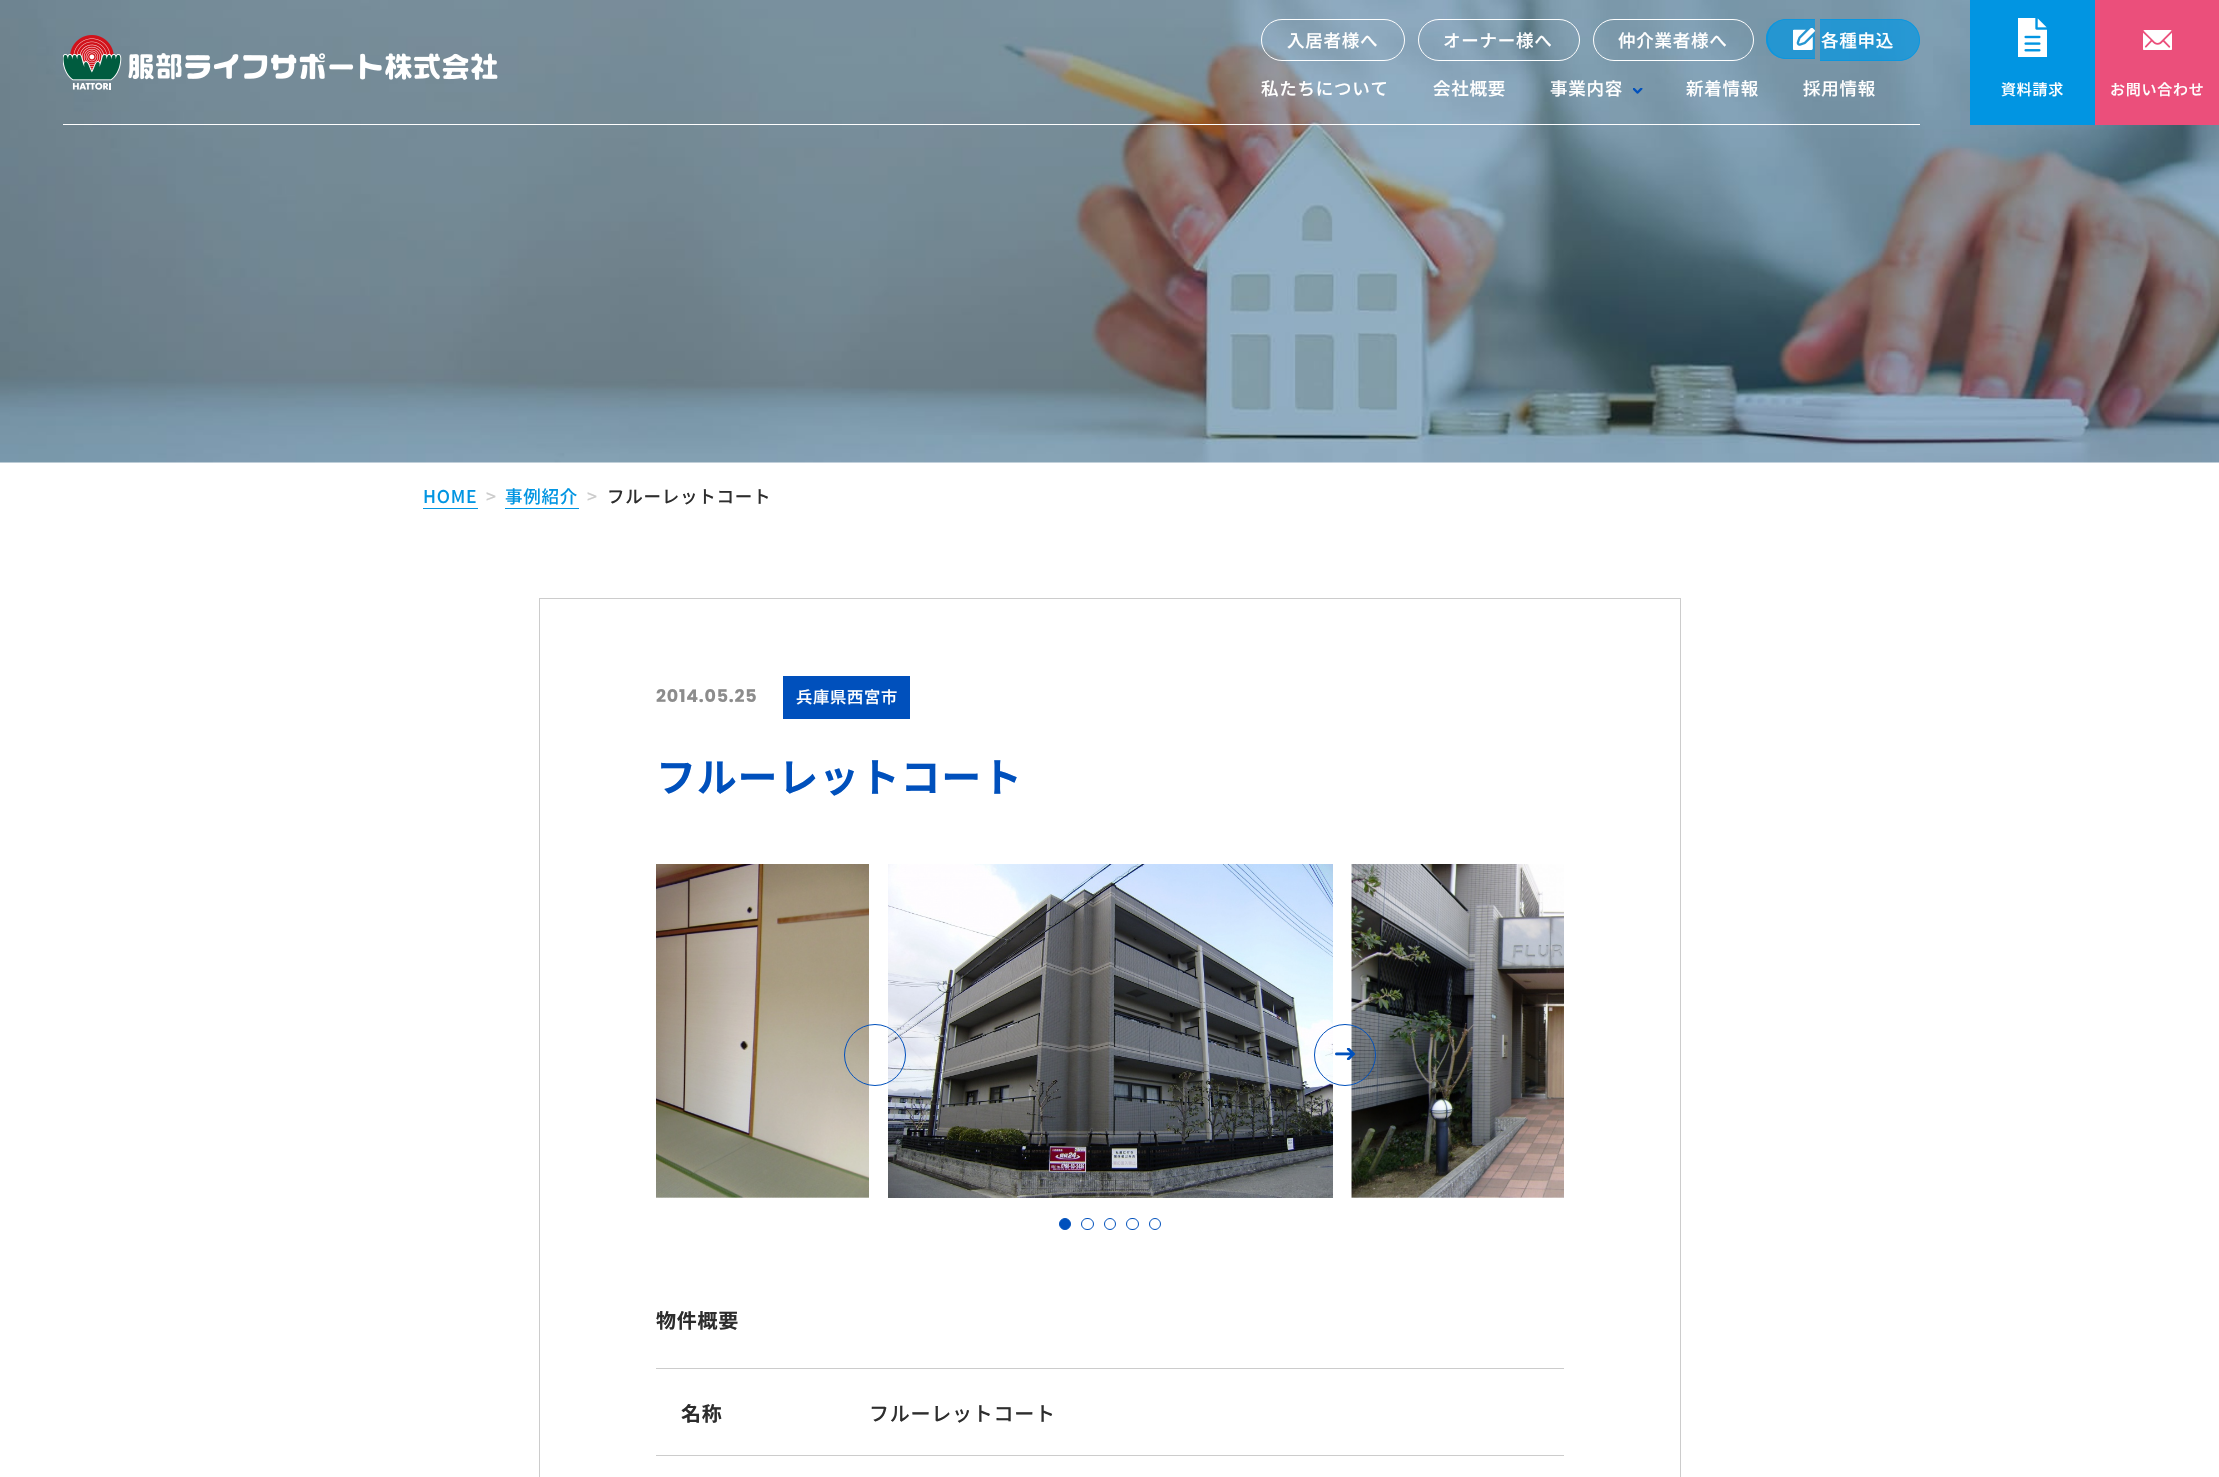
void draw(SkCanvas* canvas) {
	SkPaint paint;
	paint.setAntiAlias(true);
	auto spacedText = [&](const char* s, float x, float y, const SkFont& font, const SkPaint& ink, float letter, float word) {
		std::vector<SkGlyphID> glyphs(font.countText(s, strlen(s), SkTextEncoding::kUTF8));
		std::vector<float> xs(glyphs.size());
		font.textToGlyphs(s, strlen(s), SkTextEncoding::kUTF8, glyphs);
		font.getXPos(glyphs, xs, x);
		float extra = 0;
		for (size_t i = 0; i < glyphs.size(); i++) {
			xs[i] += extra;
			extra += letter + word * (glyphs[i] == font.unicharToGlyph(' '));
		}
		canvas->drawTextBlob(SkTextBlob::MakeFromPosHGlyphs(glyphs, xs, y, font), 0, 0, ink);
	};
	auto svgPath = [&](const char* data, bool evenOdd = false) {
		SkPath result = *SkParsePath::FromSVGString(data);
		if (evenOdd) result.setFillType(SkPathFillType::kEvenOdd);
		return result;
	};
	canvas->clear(0xffffffff);
	canvas->drawImageRect(SkImages::DeferredFromEncodedData(SkData::MakeFromFileName("img1.png")), SkRect::MakeXYWH(0, 0, 2219, 463), SkSamplingOptions());
	canvas->drawImageRect(SkImages::DeferredFromEncodedData(SkData::MakeFromFileName("img2.png")), SkRect::MakeXYWH(63, 35, 435, 55), SkSamplingOptions());
	paint.setStroke(true);
	paint.setStrokeWidth(1);
	paint.setColor(0xffffffff);
	canvas->drawRoundRect(SkRect::MakeXYWH(1261.5, 19.5, 143, 41), 20.5, 20.5, paint);
	SkFont f1(fontMgr->matchFamilyStyle("Noto Sans JP", SkFontStyle(500, SkFontStyle::kNormal_Width, SkFontStyle::kUpright_Slant)), 17.5);
	f1.setSubpixel(true);
	paint.setStroke(false);
	spacedText("入居者様へ", 1287, 47, f1, paint, 0.75, 0);
	paint.setStroke(true);
	canvas->drawRoundRect(SkRect::MakeXYWH(1418.5, 19.5, 161, 41), 20.5, 20.5, paint);
	paint.setStroke(false);
	spacedText("オーナー様へ", 1443, 47, f1, paint, 0.75, 0);
	paint.setStroke(true);
	canvas->drawRoundRect(SkRect::MakeXYWH(1593.5, 19.5, 160, 41), 20.5, 20.5, paint);
	paint.setStroke(false);
	spacedText("仲介業者様へ", 1618, 47, f1, paint, 0.75, 0);
	paint.setColor(0xb30195e2);
	canvas->drawPath(svgPath("M1786 19H1815V59H1786C1775 59 1766 50 1766 39C1766 28 1775 19 1786 19Z"), paint);
	canvas->drawPath(svgPath("M1786 19H1815V59H1786C1775 59 1766 50 1766 39C1766 28 1775 19 1786 19ZM1786 20H1815V58H1786C1776 58 1768 49 1768 39C1768 28 1776 20 1786 20Z", true), paint);
	canvas->drawPath(svgPath("M1820 19H1899C1910.5 19 1920 28.5 1920 40C1920 51.5 1910.5 61 1899 61H1820Z"), paint);
	canvas->drawPath(svgPath("M1820 19H1899C1910 19 1920 28 1920 40C1920 52 1910 61 1899 61H1820ZM1820 20H1899C1910 20 1919 29 1919 40C1919 51 1910 60 1899 60H1820Z", true), paint);
	canvas->drawImageRect(SkImages::DeferredFromEncodedData(SkData::MakeFromFileName("img3.png")), SkRect::MakeXYWH(1793, 28, 22, 22), SkSamplingOptions());
	paint.setColor(0xffffffff);
	spacedText("各種申込", 1821, 47, f1, paint, 0.75, 0);
	spacedText("私たちについて", 1261, 95, f1, paint, 0.75, 0);
	spacedText("会社概要", 1433, 95, f1, paint, 0.75, 0);
	spacedText("事業内容", 1550, 95, f1, paint, 0.75, 0);
	canvas->drawImageRect(SkImages::DeferredFromEncodedData(SkData::MakeFromFileName("img4.png")), SkRect::MakeXYWH(1633, 88, 10, 6), SkSamplingOptions());
	spacedText("新着情報", 1686, 95, f1, paint, 0.75, 0);
	spacedText("採用情報", 1803, 95, f1, paint, 0.75, 0);
	paint.setColor(0xff0195e2);
	canvas->drawRect(SkRect::MakeXYWH(1970, 0, 125, 125), paint);
	canvas->drawImageRect(SkImages::DeferredFromEncodedData(SkData::MakeFromFileName("img5.png")), SkRect::MakeXYWH(2018, 18, 29, 39), SkSamplingOptions());
	SkFont f2(fontMgr->matchFamilyStyle("Noto Sans JP", SkFontStyle(500, SkFontStyle::kNormal_Width, SkFontStyle::kUpright_Slant)), 15);
	f2.setSubpixel(true);
	paint.setColor(0xffffffff);
	spacedText("資料請求", 2001, 95, f2, paint, 0.75, 0);
	paint.setColor(0xffeb4f7b);
	canvas->drawRect(SkRect::MakeXYWH(2095, 0, 124, 125), paint);
	canvas->drawImageRect(SkImages::DeferredFromEncodedData(SkData::MakeFromFileName("img6.png")), SkRect::MakeXYWH(2143, 30, 29, 20), SkSamplingOptions());
	paint.setColor(0xffffffff);
	spacedText("お問い合わせ", 2110, 95, f2, paint, 0.75, 0);
	canvas->drawRect(SkRect::MakeXYWH(63, 124, 1857, 1), paint);
	paint.setColor(0xff0195e2);
	spacedText("HOME", 423, 503, f1, paint, 0.75, 0);
	canvas->drawRect(SkRect::MakeXYWH(423, 508, 55, 1), paint);
	paint.setColor(0xffcccccc);
	spacedText(">", 486, 503, f1, paint, 0.75, 0);
	paint.setColor(0xff0195e2);
	spacedText("事例紹介", 505, 503, f1, paint, 0.75, 0);
	canvas->drawRect(SkRect::MakeXYWH(505, 508, 74, 1), paint);
	paint.setColor(0xffcccccc);
	spacedText(">", 587, 503, f1, paint, 0.75, 0);
	paint.setColor(0xff2d2d2d);
	spacedText("フルーレットコート", 607, 503, f1, paint, 0.75, 0);
	paint.setStroke(true);
	paint.setColor(0xffcccccc);
	canvas->drawRect(SkRect::MakeXYWH(539.5, 598.5, 1141, 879), paint);
	SkFont f3(fontMgr->matchFamilyStyle("Poppins", SkFontStyle::Bold()), 17.5);
	f3.setSubpixel(true);
	paint.setStroke(false);
	paint.setColor(0xff8c8c8c);
	spacedText("2014.05.25", 656, 702, f3, paint, 0.75, 0);
	paint.setColor(0xff0050bc);
	canvas->drawRect(SkRect::MakeXYWH(783, 676, 127, 43), paint);
	SkFont f4(fontMgr->matchFamilyStyle("Noto Sans JP", SkFontStyle(500, SkFontStyle::kNormal_Width, SkFontStyle::kUpright_Slant)), 16.25);
	f4.setSubpixel(true);
	paint.setColor(0xffffffff);
	spacedText("兵庫県西宮市", 796, 703, f4, paint, 0.75, 0);
	SkFont f5(fontMgr->matchFamilyStyle("Noto Sans JP", SkFontStyle::Bold()), 40);
	f5.setSubpixel(true);
	paint.setColor(0xff0050bc);
	spacedText("フルーレットコート", 656, 792, f5, paint, 0.75, 0);
	canvas->drawImageRect(SkImages::DeferredFromEncodedData(SkData::MakeFromFileName("img7.png")), SkRect::MakeXYWH(656, 864, 213, 334), SkSamplingOptions());
	canvas->drawImageRect(SkImages::DeferredFromEncodedData(SkData::MakeFromFileName("img8.png")), SkRect::MakeXYWH(888, 864, 445, 334), SkSamplingOptions());
	canvas->drawImageRect(SkImages::DeferredFromEncodedData(SkData::MakeFromFileName("img9.png")), SkRect::MakeXYWH(1351, 864, 213, 334), SkSamplingOptions());
	paint.setStroke(true);
	canvas->drawCircle(875, 1055, 30.5, paint);
	canvas->drawCircle(1345, 1055, 30.5, paint);
	canvas->drawImageRect(SkImages::DeferredFromEncodedData(SkData::MakeFromFileName("img10.png")), SkRect::MakeXYWH(1335, 1048, 20, 12), SkSamplingOptions());
	paint.setStroke(false);
	canvas->drawCircle(1065, 1224, 5.5, paint);
	paint.setStroke(true);
	canvas->drawCircle(1065, 1224, 5.5, paint);
	canvas->drawRoundRect(SkRect::MakeXYWH(1081.5, 1218.5, 12, 11), 5.5, 5.5, paint);
	canvas->drawCircle(1110, 1224, 5.5, paint);
	canvas->drawRoundRect(SkRect::MakeXYWH(1126.5, 1218.5, 12, 11), 5.5, 5.5, paint);
	canvas->drawCircle(1155, 1224, 5.5, paint);
	SkFont f6(fontMgr->matchFamilyStyle("Noto Sans JP", SkFontStyle::Bold()), 20);
	f6.setSubpixel(true);
	paint.setStroke(false);
	paint.setColor(0xff2d2d2d);
	spacedText("物件概要", 656, 1328, f6, paint, 0.75, 0);
	paint.setColor(0xffcccccc);
	canvas->drawRect(SkRect::MakeXYWH(656, 1368, 908, 1), paint);
	paint.setColor(0xff2d2d2d);
	spacedText("名称", 681, 1421, f6, paint, 0.75, 0);
	SkFont f7(fontMgr->matchFamilyStyle("Noto Sans JP", SkFontStyle(500, SkFontStyle::kNormal_Width, SkFontStyle::kUpright_Slant)), 20);
	f7.setSubpixel(true);
	spacedText("フルーレットコート", 869, 1421, f7, paint, 0.75, 0);
	paint.setColor(0xffcccccc);
	canvas->drawRect(SkRect::MakeXYWH(656, 1455, 908, 1), paint);
}
